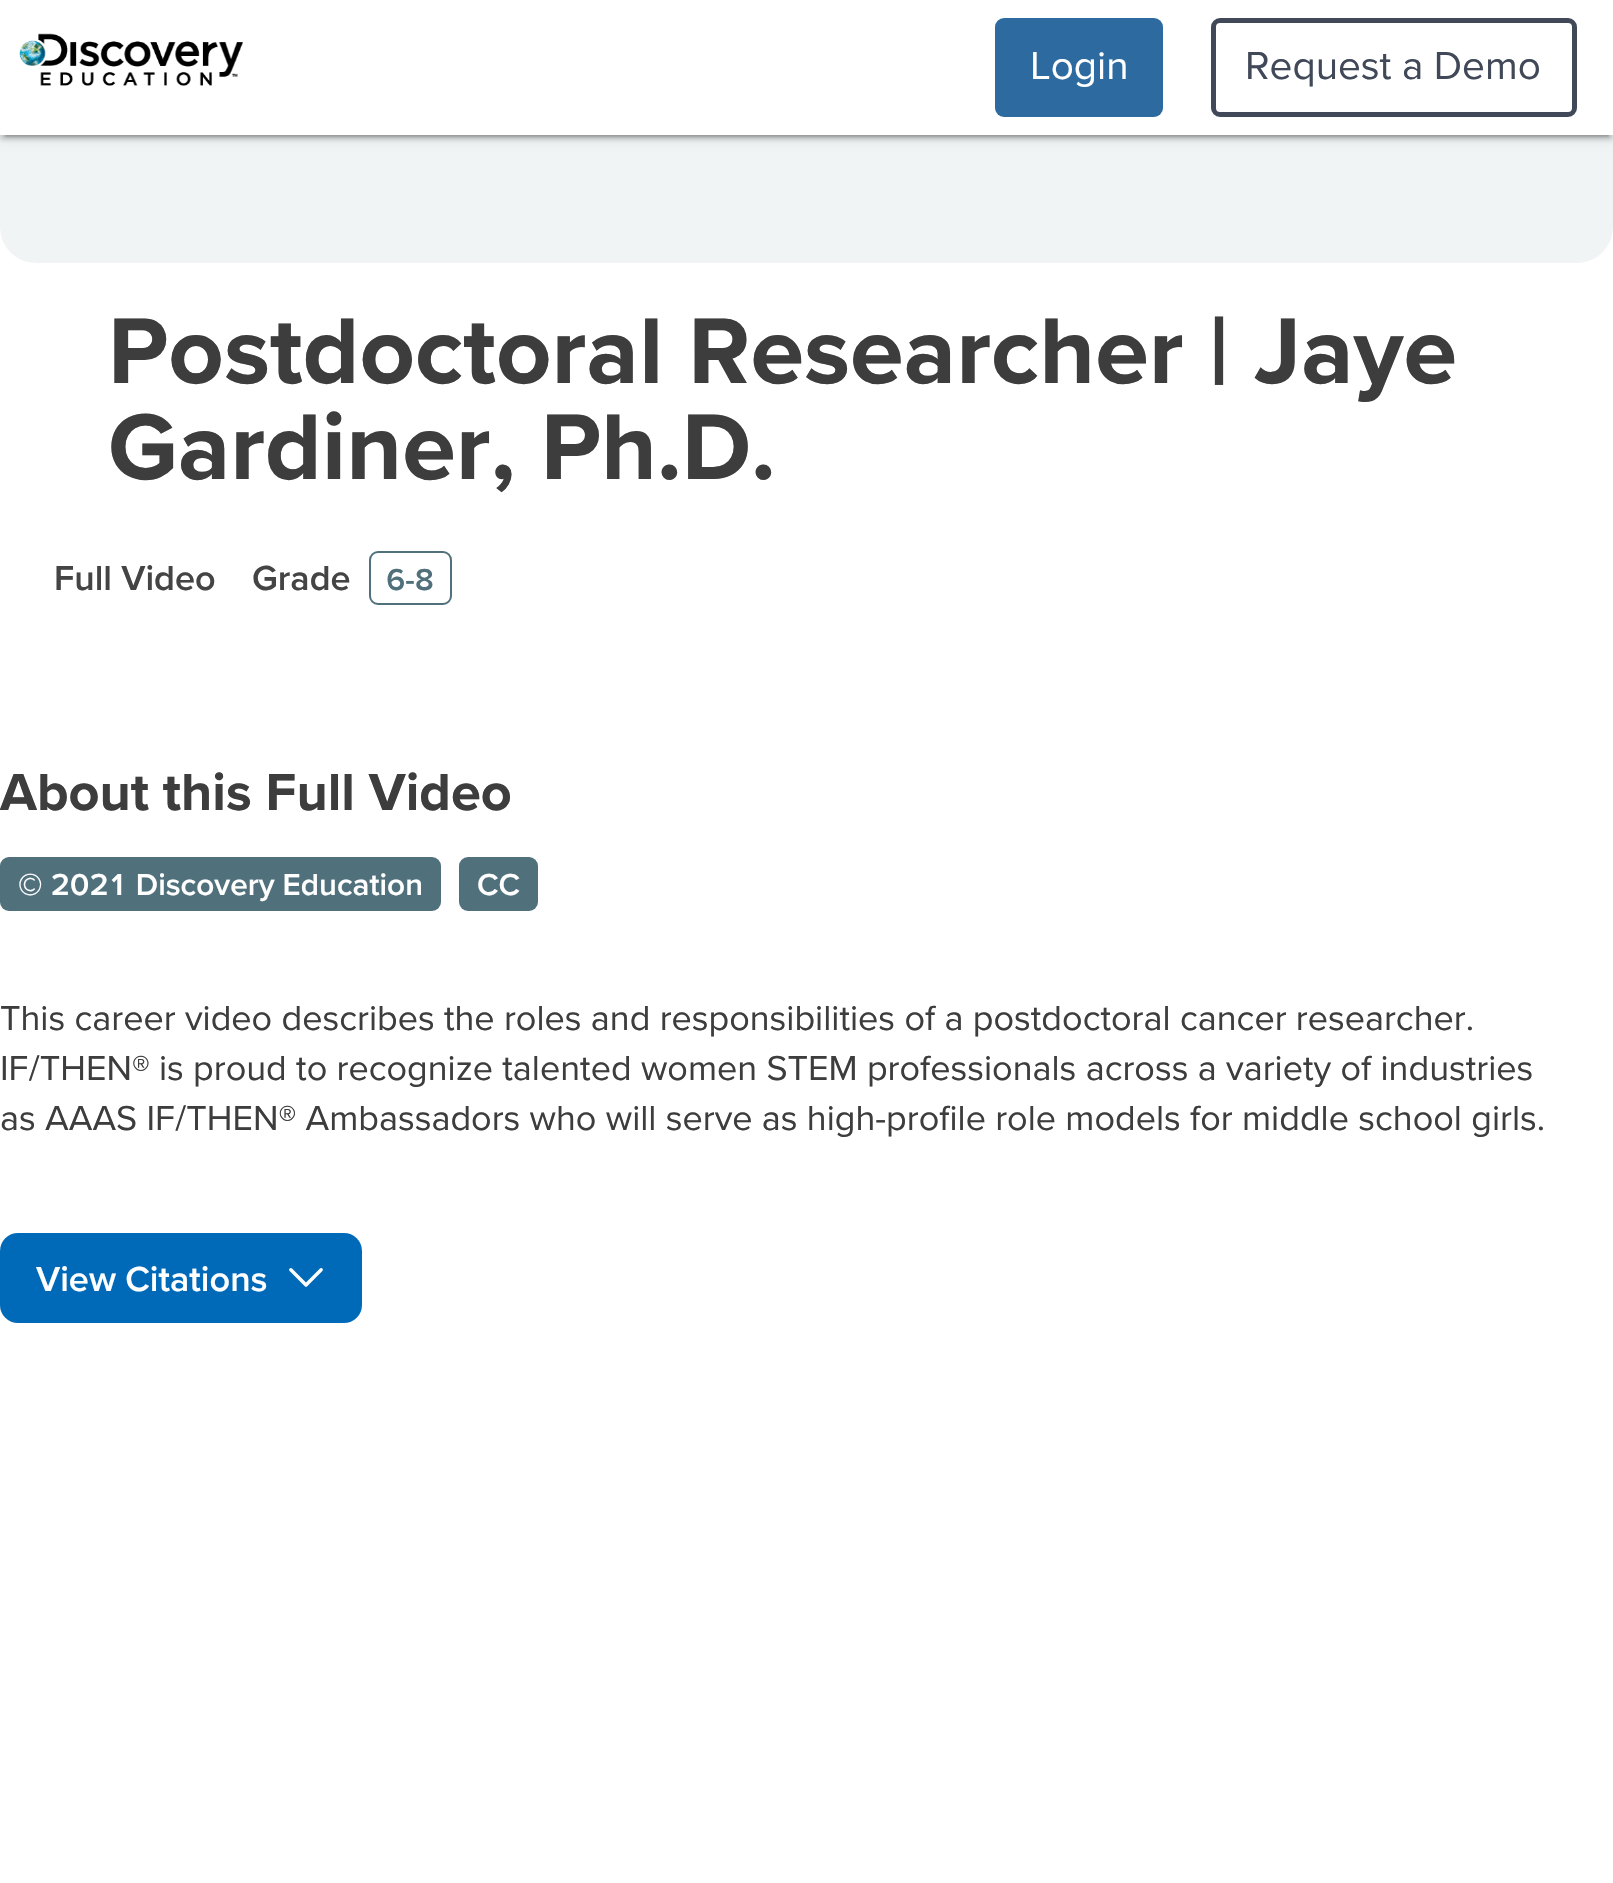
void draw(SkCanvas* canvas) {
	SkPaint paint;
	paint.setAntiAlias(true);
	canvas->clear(0xffffffff);
	paint.setColor(0xfff0f4f5);
	canvas->drawRoundRect(SkRect::MakeXYWH(0, -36, 1613, 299), 36, 36, paint);
	paint.setColor(0x33000000);
	paint.setMaskFilter(SkMaskFilter::MakeBlur(kNormal_SkBlurStyle, 1));
	canvas->drawRect(SkRect::MakeXYWH(5, 11, 1604, 126), paint);
	paint.setMaskFilter(nullptr);
	paint.setColor(0x1f000000);
	paint.setMaskFilter(SkMaskFilter::MakeBlur(kNormal_SkBlurStyle, 5.5));
	canvas->drawRect(SkRect::MakeXYWH(0, 2, 1613, 135), paint);
	paint.setMaskFilter(nullptr);
	paint.setColor(0x24000000);
	paint.setMaskFilter(SkMaskFilter::MakeBlur(kNormal_SkBlurStyle, 2));
	canvas->drawRect(SkRect::MakeXYWH(0, 5, 1613, 135), paint);
	paint.setMaskFilter(nullptr);
	paint.setColor(0xffffffff);
	canvas->drawRect(SkRect::MakeXYWH(0, 0, 1613, 135), paint);
	canvas->drawImageRect(SkImages::DeferredFromEncodedData(SkData::MakeFromFileName("img1.png")), SkRect::MakeXYWH(19, 33, 224, 53), SkSamplingOptions());
	paint.setColor(0xff2d6a9f);
	canvas->drawRoundRect(SkRect::MakeXYWH(995, 18, 168, 99), 9, 9, paint);
	SkFont f1(fontMgr->matchFamilyStyle("Proxima Nova", SkFontStyle::Normal()), 40.5);
	f1.setSubpixel(true);
	paint.setColor(0xffffffff);
	canvas->drawString("Login", 1030, 79, f1, paint);
	paint.setStroke(true);
	paint.setStrokeWidth(5);
	paint.setColor(0xff414858);
	canvas->drawRoundRect(SkRect::MakeXYWH(1213.5, 20.5, 361, 94), 6.5, 6.5, paint);
	paint.setStroke(false);
	canvas->drawString("Request a Demo", 1245, 79, f1, paint);
	SkFont f2(fontMgr->matchFamilyStyle("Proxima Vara", SkFontStyle::Bold()), 96.75);
	f2.setSubpixel(true);
	paint.setColor(0xff3d3d3d);
	canvas->drawString("Postdoctoral Researcher | Jaye", 108, 383, f2, paint);
	canvas->drawString("Gardiner, Ph.D.", 108, 479, f2, paint);
	SkFont f3(fontMgr->matchFamilyStyle("Proxima Vara", SkFontStyle(600, SkFontStyle::kNormal_Width, SkFontStyle::kUpright_Slant)), 36);
	f3.setSubpixel(true);
	paint.setColor(0xff444444);
	canvas->drawString("Full Video", 54, 590, f3, paint);
	canvas->drawString("Grade", 252, 590, f3, paint);
	paint.setStroke(true);
	paint.setStrokeWidth(2);
	paint.setColor(0xff50717c);
	canvas->drawRoundRect(SkRect::MakeXYWH(370, 552, 81, 52), 8, 8, paint);
	SkFont f4(fontMgr->matchFamilyStyle("Proxima Vara", SkFontStyle(600, SkFontStyle::kNormal_Width, SkFontStyle::kUpright_Slant)), 31.5);
	f4.setSubpixel(true);
	paint.setStroke(false);
	canvas->drawString("6-8", 386, 590, f4, paint);
	SkFont f5(fontMgr->matchFamilyStyle("Proxima Vara", SkFontStyle::Bold()), 54);
	f5.setSubpixel(true);
	paint.setColor(0xff3d3d3d);
	canvas->drawString("About this Full Video", 0, 810, f5, paint);
	paint.setColor(0xff50717c);
	canvas->drawRoundRect(SkRect::MakeXYWH(0, 857, 441, 54), 9, 9, paint);
	paint.setColor(0xffffffff);
	canvas->drawString("© 2021 Discovery Education", 18, 895, f4, paint);
	paint.setColor(0xff50717c);
	canvas->drawRoundRect(SkRect::MakeXYWH(459, 857, 79, 54), 9, 9, paint);
	paint.setColor(0xffffffff);
	canvas->drawString("CC", 477, 895, f4, paint);
	SkFont f6(fontMgr->matchFamilyStyle("Proxima Vara", SkFontStyle::Normal()), 36);
	f6.setSubpixel(true);
	paint.setColor(0xff3d3d3d);
	canvas->drawString("This career video describes the roles and responsibilities of a postdoctoral cancer researcher.", 0, 1030, f6, paint);
	canvas->drawString("IF/THEN® is proud to recognize talented women STEM professionals across a variety of industries", 0, 1080, f6, paint);
	canvas->drawString("as AAAS IF/THEN® Ambassadors who will serve as high-profile role models for middle school girls.", 0, 1130, f6, paint);
	paint.setColor(0xff0069b8);
	canvas->drawRoundRect(SkRect::MakeXYWH(0, 1233, 362, 90), 18, 18, paint);
	paint.setColor(0xffffffff);
	canvas->drawString("View Citations", 36, 1291, f3, paint);
	canvas->drawImageRect(SkImages::DeferredFromEncodedData(SkData::MakeFromFileName("img2.png")), SkRect::MakeXYWH(289, 1268, 34, 19), SkSamplingOptions());
}
